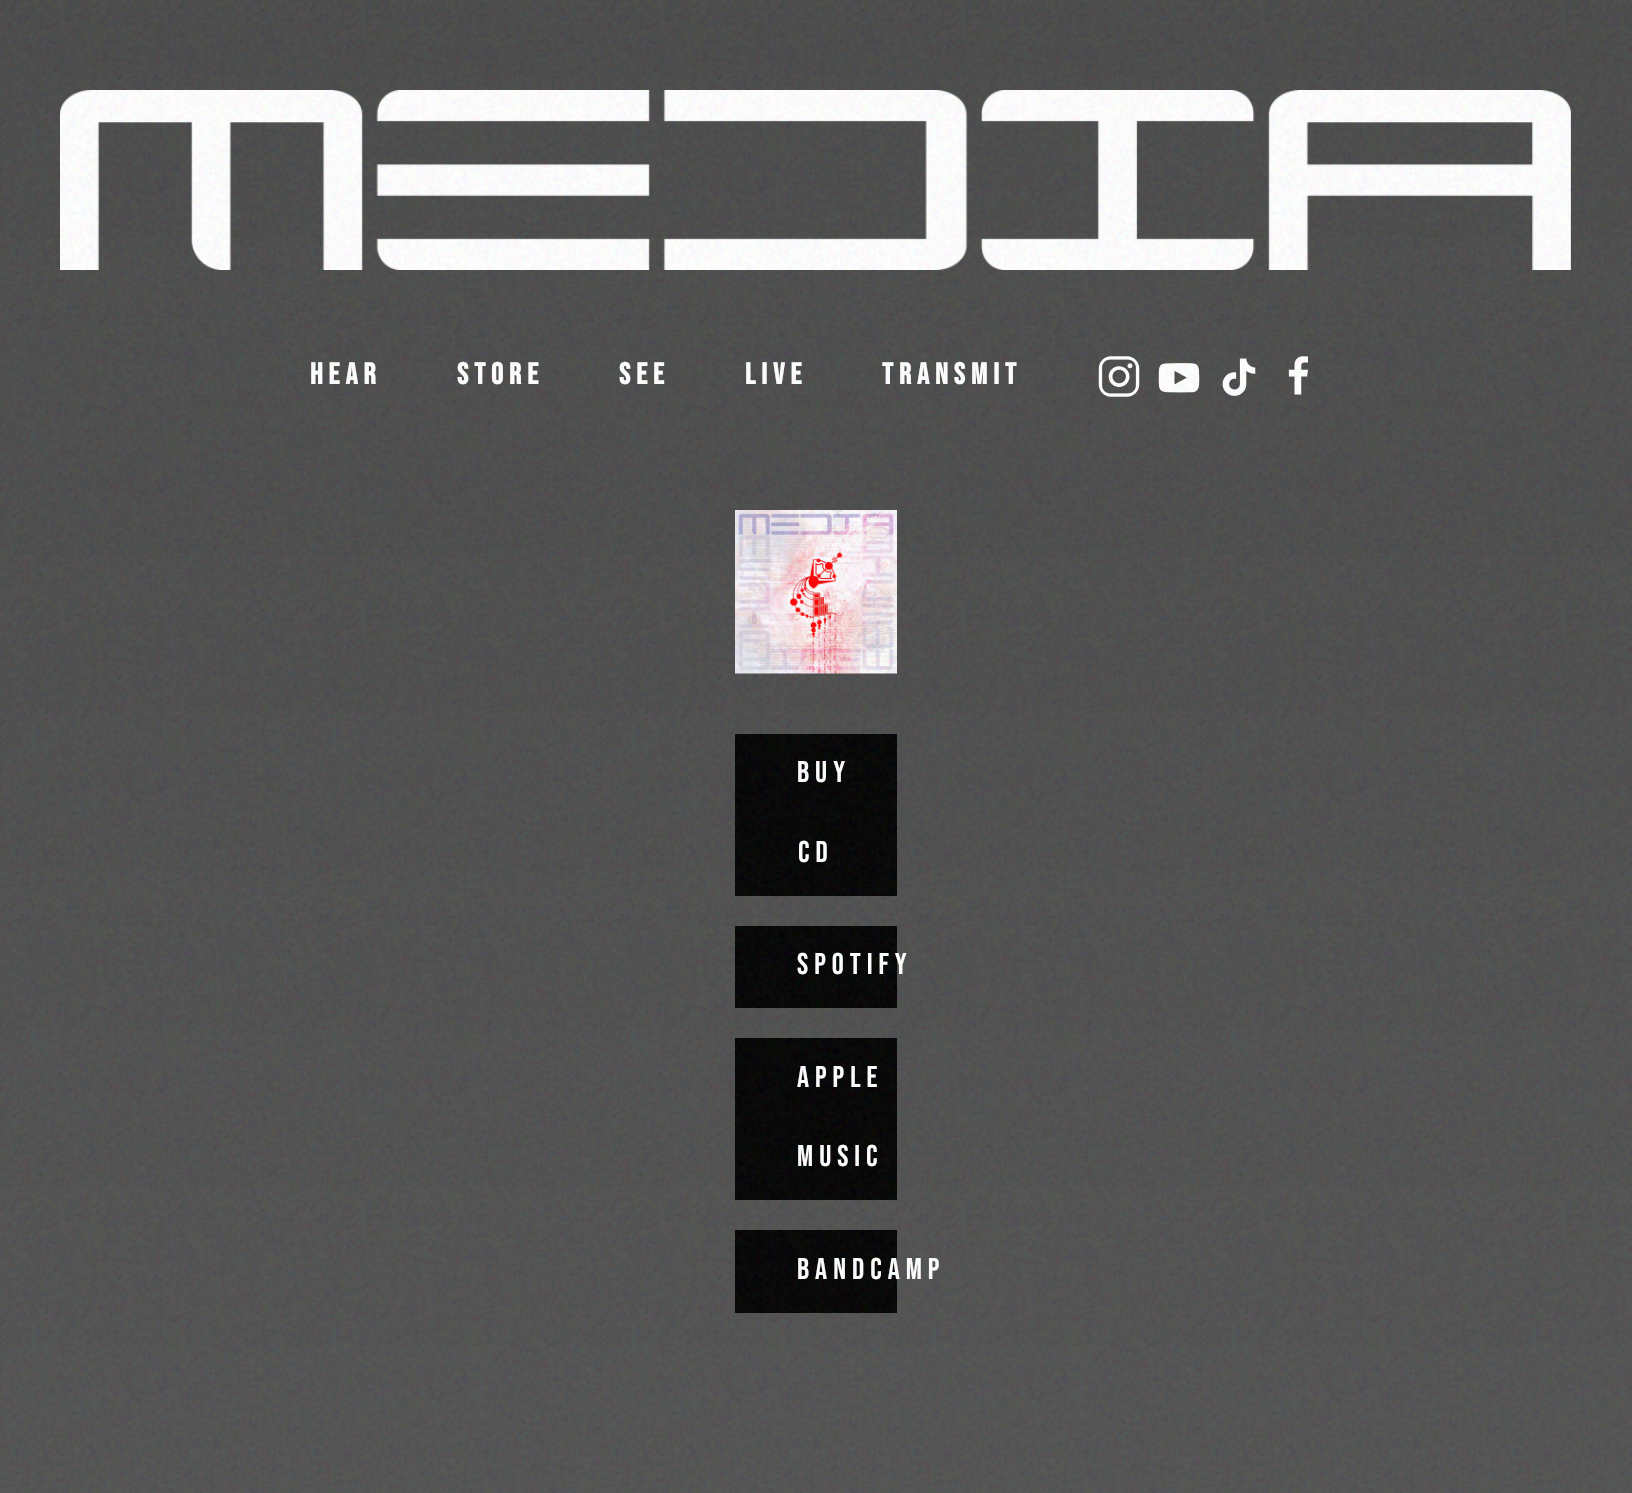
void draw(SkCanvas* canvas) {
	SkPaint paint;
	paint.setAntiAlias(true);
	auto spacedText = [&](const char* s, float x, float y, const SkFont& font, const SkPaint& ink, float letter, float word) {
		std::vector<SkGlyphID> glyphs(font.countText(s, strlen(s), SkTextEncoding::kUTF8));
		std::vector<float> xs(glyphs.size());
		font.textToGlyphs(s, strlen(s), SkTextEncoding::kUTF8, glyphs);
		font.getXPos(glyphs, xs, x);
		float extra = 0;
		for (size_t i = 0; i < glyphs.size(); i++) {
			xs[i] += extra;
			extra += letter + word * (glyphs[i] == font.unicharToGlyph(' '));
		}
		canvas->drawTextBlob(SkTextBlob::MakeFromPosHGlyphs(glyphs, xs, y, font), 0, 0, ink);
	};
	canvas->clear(0xffffffff);
	{
		const SkColor colors[] = {0xff474747, 0xff515151};
		const float stops[] = {0, 1};
		const SkPoint ends[] = {{816, 0}, {816, 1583}};
		paint.setShader(SkGradientShader::MakeLinear(ends, colors, stops, 2, SkTileMode::kClamp));
		paint.setAlpha(255);
	}
	canvas->drawRect(SkRect::MakeXYWH(0, 0, 1632, 1493), paint);
	canvas->drawImageRect(SkImages::DeferredFromEncodedData(SkData::MakeFromFileName("img2.png")), SkRect::MakeXYWH(60, 90, 1511, 180), SkSamplingOptions());
	SkFont f1(fontMgr->matchFamilyStyle("Bebas Neue", SkFontStyle::Bold()), 30);
	f1.setSubpixel(true);
	paint.setShader(nullptr);
	paint.setColor(0xffffffff);
	spacedText("HEAR", 310, 384, f1, paint, 6, 0);
	spacedText("STORE", 457, 384, f1, paint, 6, 0);
	spacedText("SEE", 619, 384, f1, paint, 6, 0);
	spacedText("LIVE", 745, 384, f1, paint, 6, 0);
	spacedText("TRANSMIT", 882, 384, f1, paint, 6, 0);
	canvas->drawImageRect(SkImages::DeferredFromEncodedData(SkData::MakeFromFileName("img3.png")), SkRect::MakeXYWH(1098, 356, 42, 41), SkSamplingOptions());
	canvas->drawImageRect(SkImages::DeferredFromEncodedData(SkData::MakeFromFileName("img4.png")), SkRect::MakeXYWH(1158, 363, 42, 30), SkSamplingOptions());
	canvas->drawImageRect(SkImages::DeferredFromEncodedData(SkData::MakeFromFileName("img5.png")), SkRect::MakeXYWH(1222, 358, 34, 38), SkSamplingOptions());
	canvas->drawImageRect(SkImages::DeferredFromEncodedData(SkData::MakeFromFileName("img6.png")), SkRect::MakeXYWH(1288, 356, 20, 39), SkSamplingOptions());
	canvas->drawImageRect(SkImages::DeferredFromEncodedData(SkData::MakeFromFileName("img7.png")), SkRect::MakeXYWH(735, 510, 162, 164), SkSamplingOptions());
	paint.setColor(0xff000000);
	canvas->drawRect(SkRect::MakeXYWH(735, 734, 162, 162), paint);
	SkFont f2(fontMgr->matchFamilyStyle("Bebas Neue", SkFontStyle::Normal()), 30);
	f2.setSubpixel(true);
	paint.setColor(0xffffffff);
	spacedText("BUY", 797, 782, f2, paint, 6, 0);
	spacedText("CD", 798, 862, f2, paint, 6, 0);
	paint.setColor(0xff000000);
	canvas->drawRect(SkRect::MakeXYWH(735, 926, 162, 82), paint);
	paint.setColor(0xffffffff);
	spacedText("SPOTIFY", 797, 974, f2, paint, 6, 0);
	paint.setColor(0xff000000);
	canvas->drawRect(SkRect::MakeXYWH(735, 1038, 162, 162), paint);
	paint.setColor(0xffffffff);
	spacedText("APPLE", 797, 1087, f2, paint, 6, 0);
	spacedText("MUSIC", 797, 1166, f2, paint, 6, 0);
	paint.setColor(0xff000000);
	canvas->drawRect(SkRect::MakeXYWH(735, 1230, 162, 83), paint);
	paint.setColor(0xffffffff);
	spacedText("BANDCAMP", 797, 1279, f2, paint, 6, 0);
	canvas->drawImageRect(SkImages::DeferredFromEncodedData(SkData::MakeFromFileName("img1.png")), SkRect::MakeXYWH(0, 0, 1632, 1493), SkSamplingOptions());
}
